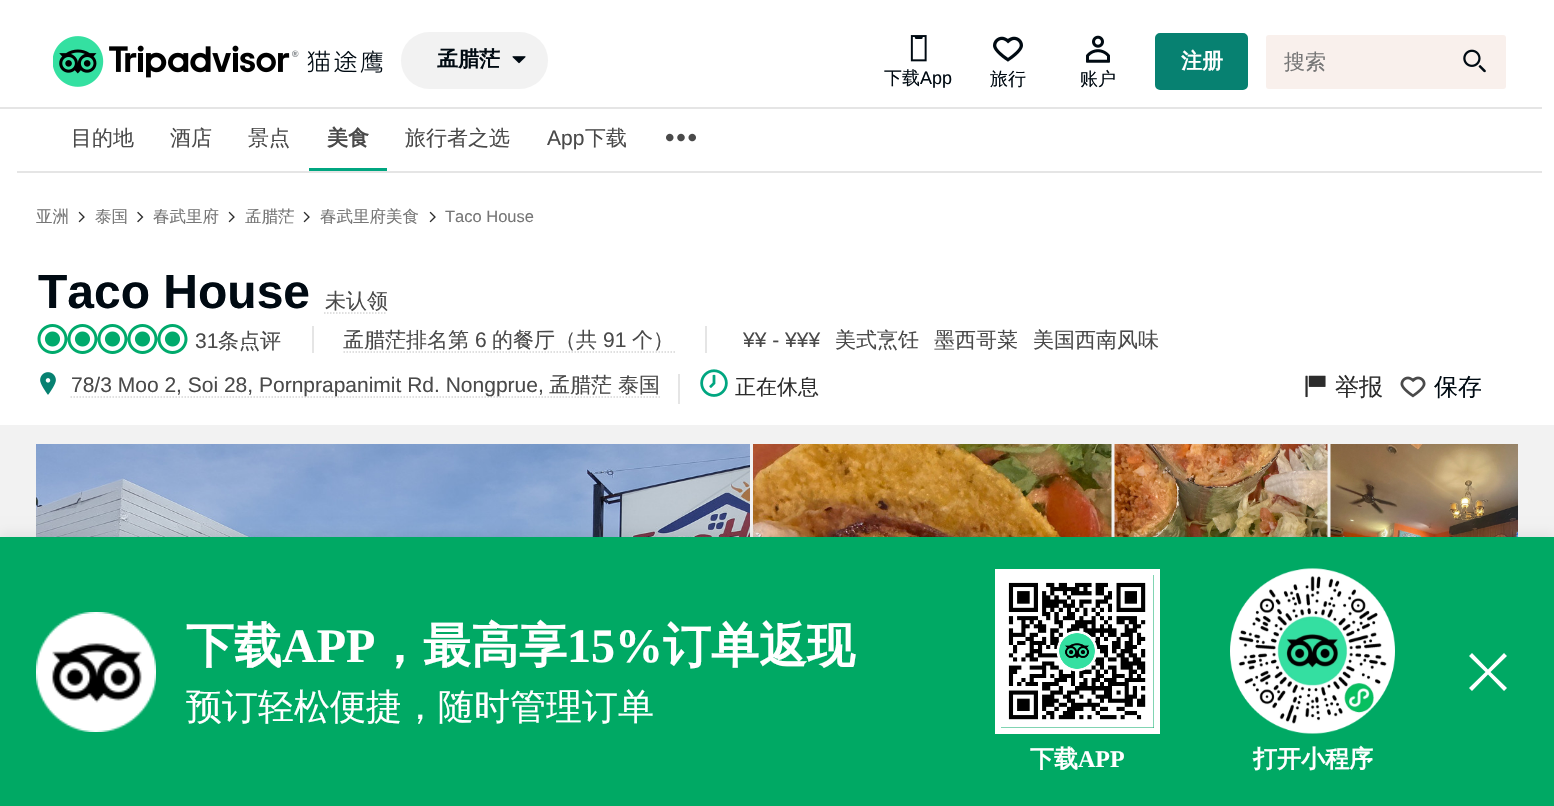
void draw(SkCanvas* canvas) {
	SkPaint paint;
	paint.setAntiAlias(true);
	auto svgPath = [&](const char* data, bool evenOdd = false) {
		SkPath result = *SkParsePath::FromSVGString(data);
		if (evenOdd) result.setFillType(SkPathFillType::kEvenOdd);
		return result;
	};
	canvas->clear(0xffffffff);
	canvas->drawImageRect(SkImages::DeferredFromEncodedData(SkData::MakeFromFileName("img1.png")), SkRect::MakeXYWH(53, 36, 330, 51), SkSamplingOptions());
	paint.setColor(0xfff2f2f2);
	canvas->drawRoundRect(SkRect::MakeXYWH(401, 32, 147, 57), 28.5, 28.5, paint);
	SkFont f1(fontMgr->matchFamilyStyle("WenQuanYi Zen Hei", SkFontStyle::Bold()), 21);
	f1.setSubpixel(true);
	paint.setColor(0xff000a12);
	canvas->drawString("孟腊茫", 437, 66, f1, paint);
	canvas->drawImageRect(SkImages::DeferredFromEncodedData(SkData::MakeFromFileName("img2.png")), SkRect::MakeXYWH(512, 56, 14, 8), SkSamplingOptions());
	paint.setColor(0xff078171);
	canvas->drawRoundRect(SkRect::MakeXYWH(1156, 34, 91, 55), 4, 4, paint);
	paint.setStroke(true);
	paint.setStrokeWidth(2);
	canvas->drawRoundRect(SkRect::MakeXYWH(1156, 34, 91, 55), 4, 4, paint);
	paint.setStroke(false);
	paint.setColor(0xffffffff);
	canvas->drawString("注册", 1181, 68, f1, paint);
	canvas->drawImageRect(SkImages::DeferredFromEncodedData(SkData::MakeFromFileName("img3.png")), SkRect::MakeXYWH(910, 35, 17, 27), SkSamplingOptions());
	SkFont f2(fontMgr->matchFamilyStyle("WenQuanYi Zen Hei", SkFontStyle(500, SkFontStyle::kNormal_Width, SkFontStyle::kUpright_Slant)), 18);
	f2.setSubpixel(true);
	paint.setColor(0xff000a12);
	canvas->drawString("下载", 884, 84, f2, paint);
	SkFont f3(fontMgr->matchFamilyStyle("Liberation Sans", SkFontStyle::Normal()), 18);
	f3.setSubpixel(true);
	canvas->drawString("App", 920, 84, f3, paint);
	canvas->drawImageRect(SkImages::DeferredFromEncodedData(SkData::MakeFromFileName("img4.png")), SkRect::MakeXYWH(993, 36, 30, 26), SkSamplingOptions());
	canvas->drawString("旅行", 990, 85, f2, paint);
	canvas->drawImageRect(SkImages::DeferredFromEncodedData(SkData::MakeFromFileName("img5.png")), SkRect::MakeXYWH(1086, 35, 24, 28), SkSamplingOptions());
	canvas->drawString("账户", 1080, 85, f2, paint);
	paint.setColor(0xfff9f0ec);
	canvas->drawRoundRect(SkRect::MakeXYWH(1266, 35, 240, 54), 3, 3, paint);
	SkFont f4(fontMgr->matchFamilyStyle("WenQuanYi Zen Hei", SkFontStyle(500, SkFontStyle::kNormal_Width, SkFontStyle::kUpright_Slant)), 21);
	f4.setSubpixel(true);
	paint.setColor(0xff767676);
	canvas->drawString("搜索", 1284, 69, f4, paint);
	canvas->drawImageRect(SkImages::DeferredFromEncodedData(SkData::MakeFromFileName("img6.png")), SkRect::MakeXYWH(1463, 49, 23, 24), SkSamplingOptions());
	paint.setColor(0xffe5e5e5);
	canvas->drawRect(SkRect::MakeXYWH(0, 107, 1542, 2), paint);
	canvas->drawRect(SkRect::MakeXYWH(17, 171, 1525, 2), paint);
	paint.setColor(0xff4a4a4a);
	canvas->drawString("目的地", 71, 145, f4, paint);
	canvas->drawString("酒店", 170, 145, f4, paint);
	canvas->drawString("景点", 248, 145, f4, paint);
	paint.setColor(0xff00a680);
	canvas->drawRect(SkRect::MakeXYWH(309, 168, 78, 3), paint);
	paint.setColor(0xff4a4a4a);
	canvas->drawString("美食", 327, 145, f1, paint);
	canvas->drawString("旅行者之选", 405, 145, f4, paint);
	SkFont f5(fontMgr->matchFamilyStyle("Liberation Sans", SkFontStyle::Normal()), 21);
	f5.setSubpixel(true);
	canvas->drawString("App", 547, 145, f5, paint);
	canvas->drawString("下载", 585, 145, f4, paint);
	canvas->drawImageRect(SkImages::DeferredFromEncodedData(SkData::MakeFromFileName("img7.png")), SkRect::MakeXYWH(666, 133, 30, 9), SkSamplingOptions());
	SkFont f6(fontMgr->matchFamilyStyle("WenQuanYi Zen Hei", SkFontStyle(500, SkFontStyle::kNormal_Width, SkFontStyle::kUpright_Slant)), 16.5);
	f6.setSubpixel(true);
	paint.setColor(0xff767676);
	canvas->drawString("亚洲", 36, 222, f6, paint);
	canvas->drawImageRect(SkImages::DeferredFromEncodedData(SkData::MakeFromFileName("img8.png")), SkRect::MakeXYWH(78, 211, 7, 12), SkSamplingOptions());
	canvas->drawString("泰国", 95, 222, f6, paint);
	canvas->drawImageRect(SkImages::DeferredFromEncodedData(SkData::MakeFromFileName("img9.png")), SkRect::MakeXYWH(137, 211, 7, 12), SkSamplingOptions());
	canvas->drawString("春武里府", 153, 222, f6, paint);
	canvas->drawImageRect(SkImages::DeferredFromEncodedData(SkData::MakeFromFileName("img8.png")), SkRect::MakeXYWH(228, 211, 7, 12), SkSamplingOptions());
	canvas->drawString("孟腊茫", 245, 222, f6, paint);
	canvas->drawImageRect(SkImages::DeferredFromEncodedData(SkData::MakeFromFileName("img8.png")), SkRect::MakeXYWH(303, 211, 7, 12), SkSamplingOptions());
	canvas->drawString("春武里府美食", 320, 222, f6, paint);
	canvas->drawImageRect(SkImages::DeferredFromEncodedData(SkData::MakeFromFileName("img8.png")), SkRect::MakeXYWH(429, 211, 7, 12), SkSamplingOptions());
	SkFont f7(fontMgr->matchFamilyStyle("Liberation Sans", SkFontStyle::Normal()), 16.5);
	f7.setSubpixel(true);
	canvas->drawString("Taco House", 445, 222, f7, paint);
	SkFont f8(fontMgr->matchFamilyStyle("Liberation Sans", SkFontStyle::Bold()), 48);
	f8.setSubpixel(true);
	paint.setColor(0xff000a12);
	canvas->drawString("Taco House", 38, 308, f8, paint);
	paint.setColor(0xff4a4a4a);
	canvas->drawString("未认领", 325, 308, f4, paint);
	paint.setStroke(true);
	paint.setStrokeWidth(1.5);
	paint.setColor(0xffd6d6d6);
	paint.setPathEffect(SkDashPathEffect::Make({{1.5f, 1.5f}}, 0));
	canvas->drawPath(svgPath("M324 313H387"), paint);
	paint.setPathEffect(nullptr);
	canvas->drawImageRect(SkImages::DeferredFromEncodedData(SkData::MakeFromFileName("img10.png")), SkRect::MakeXYWH(37, 324, 151, 30), SkSamplingOptions());
	paint.setStroke(false);
	paint.setColor(0xff4a4a4a);
	canvas->drawString("31", 195, 348, f5, paint);
	canvas->drawString("条点评", 218, 348, f4, paint);
	paint.setColor(0xffe5e5e5);
	canvas->drawRect(SkRect::MakeXYWH(312, 326, 2, 27), paint);
	paint.setColor(0xff4a4a4a);
	canvas->drawString("孟腊茫排名第", 343, 347, f4, paint);
	canvas->drawString("6", 475, 347, f5, paint);
	paint.setStroke(true);
	paint.setColor(0xffd6d6d6);
	paint.setPathEffect(SkDashPathEffect::Make({{1.5f, 1.5f}}, 0));
	canvas->drawPath(svgPath("M343.5 352H675"), paint);
	paint.setPathEffect(nullptr);
	paint.setStroke(false);
	paint.setColor(0xff4a4a4a);
	canvas->drawString("的餐厅（共", 492, 347, f4, paint);
	canvas->drawString("91", 603, 347, f5, paint);
	canvas->drawString("个）", 632, 347, f4, paint);
	paint.setColor(0xffe5e5e5);
	canvas->drawRect(SkRect::MakeXYWH(705, 326, 2, 27), paint);
	paint.setColor(0xff4a4a4a);
	canvas->drawString("¥¥ - ¥¥¥", 743, 347, f5, paint);
	canvas->drawString("美式烹饪", 835, 347, f4, paint);
	canvas->drawString("墨西哥菜", 934, 347, f4, paint);
	canvas->drawString("美国西南风味", 1033, 347, f4, paint);
	canvas->drawImageRect(SkImages::DeferredFromEncodedData(SkData::MakeFromFileName("img11.png")), SkRect::MakeXYWH(40, 372, 16, 23), SkSamplingOptions());
	paint.setStroke(true);
	paint.setColor(0xffd6d6d6);
	paint.setPathEffect(SkDashPathEffect::Make({{1.5f, 1.5f}}, 0));
	canvas->drawPath(svgPath("M70.5 397H660"), paint);
	paint.setPathEffect(nullptr);
	paint.setStroke(false);
	paint.setColor(0xff4a4a4a);
	canvas->drawString("78/3 Moo 2, Soi 28, Pornprapanimit Rd. Nongprue,", 71, 392, f5, paint);
	canvas->drawString("孟腊茫", 549, 392, f4, paint);
	canvas->drawString("泰国", 618, 392, f4, paint);
	paint.setColor(0xffe5e5e5);
	canvas->drawRect(SkRect::MakeXYWH(678, 374, 2, 30), paint);
	canvas->drawImageRect(SkImages::DeferredFromEncodedData(SkData::MakeFromFileName("img12.png")), SkRect::MakeXYWH(700, 369, 28, 28), SkSamplingOptions());
	paint.setColor(0xff2c2c2c);
	canvas->drawString("正在休息", 735, 394, f4, paint);
	canvas->drawImageRect(SkImages::DeferredFromEncodedData(SkData::MakeFromFileName("img13.png")), SkRect::MakeXYWH(1305, 375, 21, 23), SkSamplingOptions());
	SkFont f9(fontMgr->matchFamilyStyle("WenQuanYi Zen Hei", SkFontStyle(500, SkFontStyle::kNormal_Width, SkFontStyle::kUpright_Slant)), 24);
	f9.setSubpixel(true);
	canvas->drawString("举报", 1335, 395, f9, paint);
	canvas->drawImageRect(SkImages::DeferredFromEncodedData(SkData::MakeFromFileName("img14.png")), SkRect::MakeXYWH(1400, 376, 26, 22), SkSamplingOptions());
	paint.setColor(0xff000a12);
	canvas->drawString("保存", 1434, 395, f9, paint);
	paint.setColor(0xfff2f2f2);
	canvas->drawRect(SkRect::MakeXYWH(0, 425, 1554, 112), paint);
	canvas->drawImageRect(SkImages::DeferredFromEncodedData(SkData::MakeFromFileName("img15.png")), SkRect::MakeXYWH(36, 444, 714, 93), SkSamplingOptions());
	canvas->drawImageRect(SkImages::DeferredFromEncodedData(SkData::MakeFromFileName("img16.png")), SkRect::MakeXYWH(753, 444, 359, 93), SkSamplingOptions());
	canvas->drawImageRect(SkImages::DeferredFromEncodedData(SkData::MakeFromFileName("img17.png")), SkRect::MakeXYWH(1114, 444, 214, 93), SkSamplingOptions());
	canvas->drawImageRect(SkImages::DeferredFromEncodedData(SkData::MakeFromFileName("img18.png")), SkRect::MakeXYWH(1330, 444, 188, 93), SkSamplingOptions());
	paint.setColor(0x14000000);
	paint.setMaskFilter(SkMaskFilter::MakeBlur(kNormal_SkBlurStyle, 6));
	canvas->drawRect(SkRect::MakeXYWH(0, 534, 1554, 270), paint);
	paint.setMaskFilter(nullptr);
	paint.setColor(0xff00a964);
	canvas->drawRect(SkRect::MakeXYWH(0, 537, 1554, 269), paint);
	canvas->drawImageRect(SkImages::DeferredFromEncodedData(SkData::MakeFromFileName("img19.png")), SkRect::MakeXYWH(36, 612, 120, 120), SkSamplingOptions());
	SkFont f10(fontMgr->matchFamilyStyle("WenQuanYi Zen Hei", SkFontStyle::Bold()), 48);
	f10.setSubpixel(true);
	paint.setColor(0xffffffff);
	canvas->drawString("下载", 186, 662, f10, paint);
	SkFont f11(fontMgr->matchFamilyStyle("Liberation Serif", SkFontStyle::Bold()), 48);
	f11.setSubpixel(true);
	canvas->drawString("APP", 282, 662, f11, paint);
	canvas->drawString("，最高享", 375, 662, f10, paint);
	canvas->drawString("15%", 567, 662, f11, paint);
	canvas->drawString("订单返现", 663, 662, f10, paint);
	SkFont f12(fontMgr->matchFamilyStyle("WenQuanYi Zen Hei", SkFontStyle(500, SkFontStyle::kNormal_Width, SkFontStyle::kUpright_Slant)), 36);
	f12.setSubpixel(true);
	canvas->drawString("预订轻松便捷，随时管理订单", 186, 719, f12, paint);
	canvas->drawPath(svgPath("M1504 653L1507 656L1490.5 672L1507 688L1504 691L1488 674.5L1472 691L1469 688L1485.5 672L1469 656L1472 653L1488 669.5Z"), paint);
	paint.setStroke(true);
	paint.setStrokeWidth(6);
	canvas->drawRect(SkRect::MakeXYWH(998, 572, 159, 159), paint);
	canvas->drawImageRect(SkImages::DeferredFromEncodedData(SkData::MakeFromFileName("img20.png")), SkRect::MakeXYWH(1001, 575, 153, 153), SkSamplingOptions());
	SkFont f13(fontMgr->matchFamilyStyle("WenQuanYi Zen Hei", SkFontStyle::Bold()), 24);
	f13.setSubpixel(true);
	paint.setStroke(false);
	canvas->drawString("下载", 1030, 767, f13, paint);
	SkFont f14(fontMgr->matchFamilyStyle("Liberation Serif", SkFontStyle::Bold()), 24);
	f14.setSubpixel(true);
	canvas->drawString("APP", 1078, 767, f14, paint);
	canvas->drawImageRect(SkImages::DeferredFromEncodedData(SkData::MakeFromFileName("img21.png")), SkRect::MakeXYWH(1230, 568, 165, 166), SkSamplingOptions());
	canvas->drawString("打开小程序", 1253, 767, f13, paint);
}
